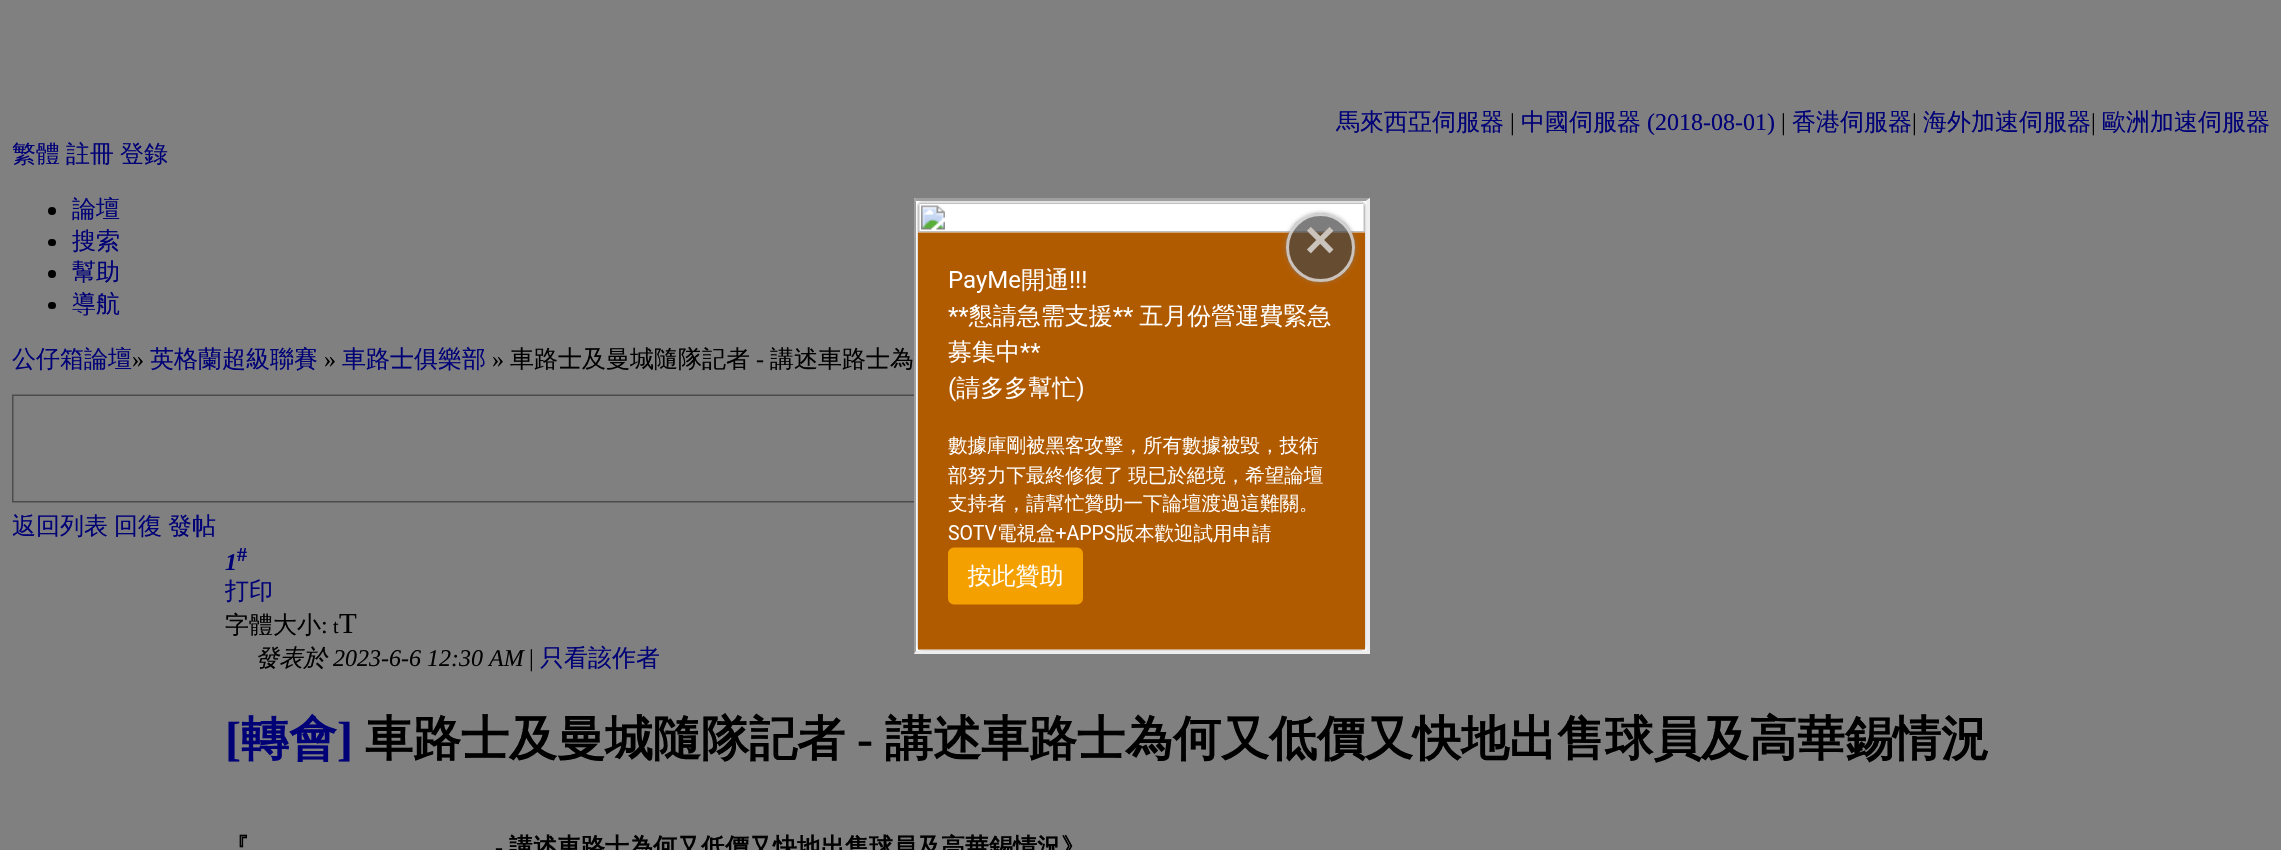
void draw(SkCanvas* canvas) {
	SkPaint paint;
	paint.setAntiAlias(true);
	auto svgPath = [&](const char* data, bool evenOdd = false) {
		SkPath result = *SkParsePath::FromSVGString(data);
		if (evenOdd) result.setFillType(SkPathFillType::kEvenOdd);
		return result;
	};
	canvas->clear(0xff808080);
	SkFont f1(fontMgr->matchFamilyStyle("WenQuanYi Zen Hei", SkFontStyle(500, SkFontStyle::kNormal_Width, SkFontStyle::kUpright_Slant)), 24);
	f1.setSubpixel(true);
	paint.setColor(0xff000077);
	canvas->drawString("馬來西亞伺服器", 1336, 130, f1, paint);
	SkFont f2(fontMgr->matchFamilyStyle("Liberation Serif", SkFontStyle::Normal()), 24);
	f2.setSubpixel(true);
	paint.setColor(0xff000000);
	canvas->drawString("|", 1510, 130, f2, paint);
	paint.setColor(0xff000077);
	canvas->drawString("中國伺服器", 1521, 130, f1, paint);
	canvas->drawString("(2018-08-01)", 1647, 130, f2, paint);
	paint.setColor(0xff000000);
	canvas->drawString("|", 1781, 130, f2, paint);
	paint.setColor(0xff000077);
	canvas->drawString("香港伺服器", 1792, 130, f1, paint);
	paint.setColor(0xff000000);
	canvas->drawString("|", 1912, 130, f2, paint);
	paint.setColor(0xff000077);
	canvas->drawString("海外加速伺服器", 1923, 130, f1, paint);
	paint.setColor(0xff000000);
	canvas->drawString("|", 2091, 130, f2, paint);
	paint.setColor(0xff000077);
	canvas->drawString("歐洲加速伺服器", 2102, 130, f1, paint);
	canvas->drawString("繁體", 12, 162, f1, paint);
	canvas->drawString("註冊", 66, 162, f1, paint);
	canvas->drawString("登錄", 120, 162, f1, paint);
	paint.setColor(0xff000000);
	canvas->drawCircle(52, 211, 4, paint);
	paint.setColor(0xff000077);
	canvas->drawString("論壇", 72, 217, f1, paint);
	paint.setColor(0xff000000);
	canvas->drawRoundRect(SkRect::MakeXYWH(48, 239, 8, 7), 3.5, 3.5, paint);
	paint.setColor(0xff000077);
	canvas->drawString("搜索", 72, 249, f1, paint);
	paint.setColor(0xff000000);
	canvas->drawCircle(52, 274, 4, paint);
	paint.setColor(0xff000077);
	canvas->drawString("幫助", 72, 280, f1, paint);
	paint.setColor(0xff000000);
	canvas->drawRoundRect(SkRect::MakeXYWH(48, 302, 8, 7), 3.5, 3.5, paint);
	paint.setColor(0xff000077);
	canvas->drawString("導航", 72, 312, f1, paint);
	paint.setColor(0xffffffff);
	canvas->drawRect(SkRect::MakeXYWH(914, 198, 456, 456), paint);
	paint.setColor(0xff9f9f9f);
	canvas->drawPath(svgPath("M914 198H1370L1366 201H916Z"), paint);
	paint.setColor(0xffeeeeee);
	canvas->drawPath(svgPath("M1370 198V654L1366 651V201Z"), paint);
	canvas->drawPath(svgPath("M1370 654H914L916 651H1366Z"), paint);
	paint.setColor(0xff9f9f9f);
	canvas->drawPath(svgPath("M914 654V198L916 201V651Z"), paint);
	canvas->drawImageRect(SkImages::DeferredFromEncodedData(SkData::MakeFromFileName("img1.png")), SkRect::MakeXYWH(916, 201, 451, 450), SkSamplingOptions());
	canvas->save();
	canvas->clipPath(svgPath("M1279 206H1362V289H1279ZM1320.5 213C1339.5 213 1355 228.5 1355 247.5C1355 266.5 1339.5 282 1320.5 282C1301.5 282 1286 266.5 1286 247.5C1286 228.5 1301.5 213 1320.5 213Z", true), true);
	paint.setColor(0xb3808080);
	paint.setMaskFilter(SkMaskFilter::MakeBlur(kNormal_SkBlurStyle, 2));
	canvas->drawRoundRect(SkRect::MakeXYWH(1286, 213, 69, 69), 34.5, 34.5, paint);
	paint.setMaskFilter(nullptr);
	canvas->restore();
	paint.setColor(0xb3464646);
	canvas->drawCircle(1320.5, 247.5, 34.5, paint);
	paint.setStroke(true);
	paint.setStrokeWidth(3);
	paint.setColor(0xb3f5f5f5);
	canvas->drawCircle(1320.5, 247.5, 33, paint);
	SkFont f3(fontMgr->matchFamilyStyle("DejaVu Sans", SkFontStyle::Bold()), 42);
	f3.setSubpixel(true);
	paint.setStroke(false);
	paint.setColor(0xffcbc4bd);
	canvas->drawString("✕", 1302, 256, f3, paint);
	paint.setColor(0xff000077);
	canvas->drawString("公仔箱論壇", 12, 367, f1, paint);
	paint.setColor(0xff000000);
	canvas->drawString("»", 132, 367, f2, paint);
	paint.setColor(0xff000077);
	canvas->drawString("英格蘭超級聯賽", 150, 367, f1, paint);
	paint.setColor(0xff000000);
	canvas->drawString("»", 324, 367, f2, paint);
	paint.setColor(0xff000077);
	canvas->drawString("車路士俱樂部", 342, 367, f1, paint);
	paint.setColor(0xff000000);
	canvas->drawString("»", 492, 367, f2, paint);
	canvas->drawString("車路士及曼城隨隊記者", 510, 367, f1, paint);
	canvas->drawString("-", 756, 367, f2, paint);
	canvas->drawString("講述車路士為", 770, 367, f1, paint);
	canvas->drawImageRect(SkImages::DeferredFromEncodedData(SkData::MakeFromFileName("img2.png")), SkRect::MakeXYWH(12, 394, 902, 109), SkSamplingOptions());
	paint.setColor(0xff000077);
	canvas->drawString("返回列表", 12, 534, f1, paint);
	canvas->drawString("回復", 114, 534, f1, paint);
	canvas->drawString("發帖", 168, 534, f1, paint);
	SkFont f4(fontMgr->matchFamilyStyle("Liberation Serif", SkFontStyle::BoldItalic()), 24);
	f4.setSubpixel(true);
	canvas->drawString("1", 225, 570, f4, paint);
	SkFont f5(fontMgr->matchFamilyStyle("Liberation Serif", SkFontStyle::Bold()), 20);
	f5.setSubpixel(true);
	canvas->drawString("#", 237, 561, f5, paint);
	canvas->drawString("打印", 225, 599, f1, paint);
	paint.setColor(0xff000000);
	canvas->drawString("字體大小", 225, 633, f1, paint);
	canvas->drawString(":", 321, 633, f2, paint);
	SkFont f6(fontMgr->matchFamilyStyle("Liberation Serif", SkFontStyle::Normal()), 20);
	f6.setSubpixel(true);
	canvas->drawString("t", 333, 633, f6, paint);
	SkFont f7(fontMgr->matchFamilyStyle("Liberation Serif", SkFontStyle::Normal()), 29);
	f7.setSubpixel(true);
	canvas->drawString("T", 339, 633, f7, paint);
	SkFont f8(fontMgr->matchFamilyStyle("WenQuanYi Zen Hei", SkFontStyle(500, SkFontStyle::kNormal_Width, SkFontStyle::kItalic_Slant)), 24);
	f8.setSubpixel(true);
	canvas->drawString("發表於", 255, 666, f8, paint);
	SkFont f9(fontMgr->matchFamilyStyle("Liberation Serif", SkFontStyle::Italic()), 24);
	f9.setSubpixel(true);
	canvas->drawString("2023-6-6 12:30 AM", 333, 666, f9, paint);
	canvas->drawString("|", 529, 666, f2, paint);
	paint.setColor(0xff000077);
	canvas->drawString("只看該作者", 540, 666, f1, paint);
	SkFont f10(fontMgr->matchFamilyStyle("Liberation Serif", SkFontStyle::Bold()), 48);
	f10.setSubpixel(true);
	canvas->drawString("[", 225, 755, f10, paint);
	SkFont f11(fontMgr->matchFamilyStyle("WenQuanYi Zen Hei", SkFontStyle::Bold()), 48);
	f11.setSubpixel(true);
	canvas->drawString("轉會", 241, 755, f11, paint);
	canvas->drawString("]", 337, 755, f10, paint);
	paint.setColor(0xff000000);
	canvas->drawString("車路士及曼城隨隊記者", 365, 755, f11, paint);
	canvas->drawString("-", 857, 755, f10, paint);
	canvas->drawString("講述車路士為何又低價又快地出售球員及高華錫情況", 885, 755, f11, paint);
	SkFont f12(fontMgr->matchFamilyStyle("WenQuanYi Zen Hei", SkFontStyle::Bold()), 24);
	f12.setSubpixel(true);
	canvas->drawString("『", 225, 855, f12, paint);
	canvas->drawString("講述車路士為何又低價又快地出售球員及高華錫情況》", 509, 855, f12, paint);
	SkFont f13(fontMgr->matchFamilyStyle("Liberation Serif", SkFontStyle::Bold()), 24);
	f13.setSubpixel(true);
	canvas->drawString("-", 495, 855, f13, paint);
}
